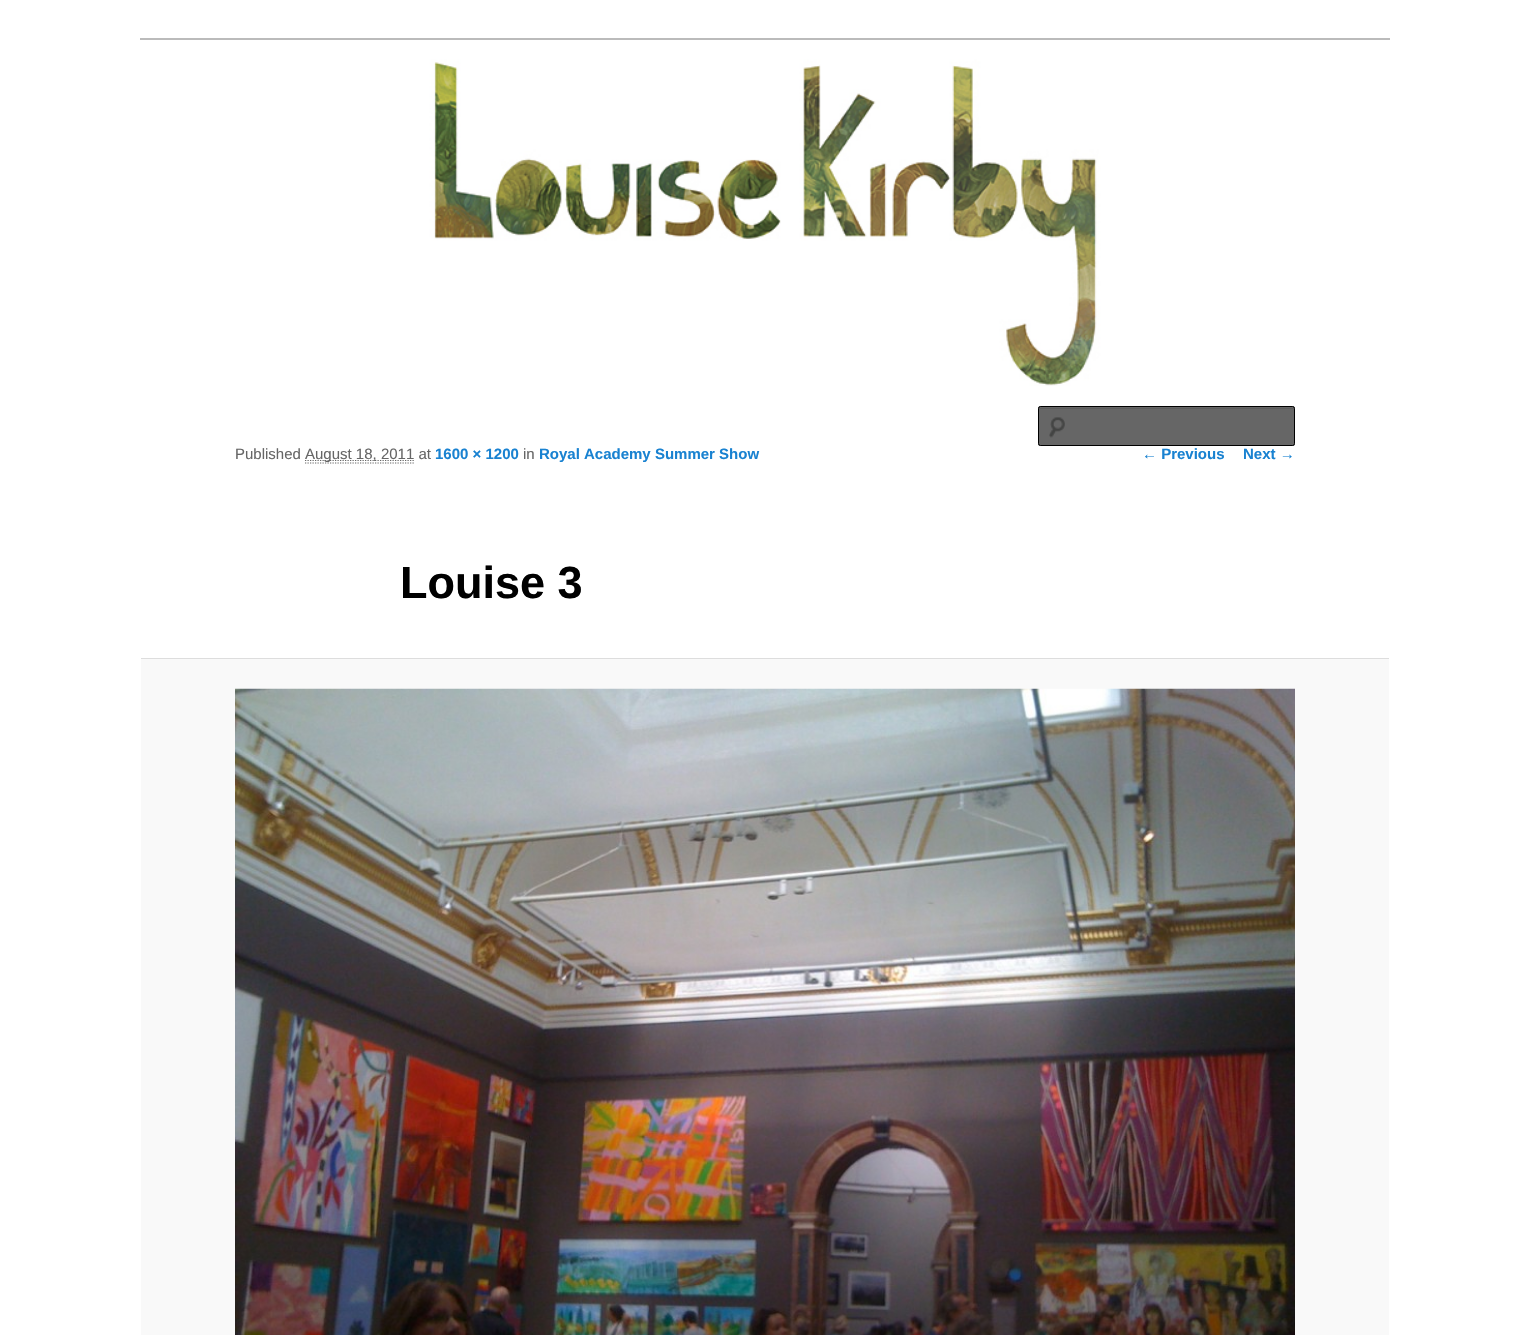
void draw(SkCanvas* canvas) {
	SkPaint paint;
	paint.setAntiAlias(true);
	auto svgPath = [&](const char* data, bool evenOdd = false) {
		SkPath result = *SkParsePath::FromSVGString(data);
		if (evenOdd) result.setFillType(SkPathFillType::kEvenOdd);
		return result;
	};
	canvas->clear(0xffffffff);
	paint.setColor(0xffbbbbbb);
	canvas->drawRect(SkRect::MakeXYWH(140, 38, 1250, 2), paint);
	canvas->drawImageRect(SkImages::DeferredFromEncodedData(SkData::MakeFromFileName("img1.png")), SkRect::MakeXYWH(140, 40, 1250, 346), SkSamplingOptions());
	paint.setColor(0xff666666);
	canvas->drawRoundRect(SkRect::MakeXYWH(1038, 406, 257, 40), 2.5, 2.5, paint);
	canvas->drawImageRect(SkImages::DeferredFromEncodedData(SkData::MakeFromFileName("img2.png")), SkRect::MakeXYWH(1049, 417, 16, 21), SkSamplingOptions());
	paint.setColor(0xff5c5c5c);
	canvas->drawPath(svgPath("M1040 409H1292C1293 409 1294 409 1294 410V408H1040C1039 408 1039 409 1039 410C1039 409 1039 409 1040 409Z"), paint);
	paint.setStroke(true);
	paint.setStrokeWidth(1);
	paint.setColor(0xff000000);
	canvas->drawRoundRect(SkRect::MakeXYWH(1038.5, 406.5, 256, 39), 2, 2, paint);
	SkFont f1(fontMgr->matchFamilyStyle("Liberation Sans", SkFontStyle::Normal()), 15);
	f1.setSubpixel(true);
	paint.setStroke(false);
	paint.setColor(0xff666666);
	canvas->drawString("Published", 235, 459, f1, paint);
	paint.setStroke(true);
	paint.setStrokeWidth(1.2);
	paint.setPathEffect(SkDashPathEffect::Make({{1.25f, 1.25f}}, 0));
	canvas->drawPath(svgPath("M305 463H414"), paint);
	paint.setPathEffect(nullptr);
	paint.setPathEffect(SkDashPathEffect::Make({{1.25f, 1.25f}}, 0));
	canvas->drawPath(svgPath("M305 460.5H414.5"), paint);
	paint.setPathEffect(nullptr);
	paint.setStroke(false);
	canvas->drawString("August 18, 2011 at", 305, 459, f1, paint);
	SkFont f2(fontMgr->matchFamilyStyle("Liberation Sans", SkFontStyle::Bold()), 15);
	f2.setSubpixel(true);
	paint.setColor(0xff1982d1);
	canvas->drawString("1600 × 1200", 435, 459, f2, paint);
	paint.setColor(0xff666666);
	canvas->drawString("in", 523, 459, f1, paint);
	paint.setColor(0xff1982d1);
	canvas->drawString("Royal Academy Summer Show", 539, 459, f2, paint);
	SkFont f3(fontMgr->matchFamilyStyle("Liberation Sans", SkFontStyle::Bold()), 45);
	f3.setSubpixel(true);
	paint.setColor(0xff000000);
	canvas->drawString("Louise 3", 400, 598, f3, paint);
	paint.setColor(0xfff9f9f9);
	canvas->drawRect(SkRect::MakeXYWH(141, 659, 1248, 676), paint);
	paint.setColor(0xffdddddd);
	canvas->drawRect(SkRect::MakeXYWH(141, 658, 1248, 1), paint);
	canvas->drawImageRect(SkImages::DeferredFromEncodedData(SkData::MakeFromFileName("img3.png")), SkRect::MakeXYWH(235, 688, 1060, 647), SkSamplingOptions());
	paint.setColor(0xff1982d1);
	canvas->drawString("← Previous", 1142, 459, f2, paint);
	canvas->drawString("Next →", 1243, 459, f2, paint);
}
